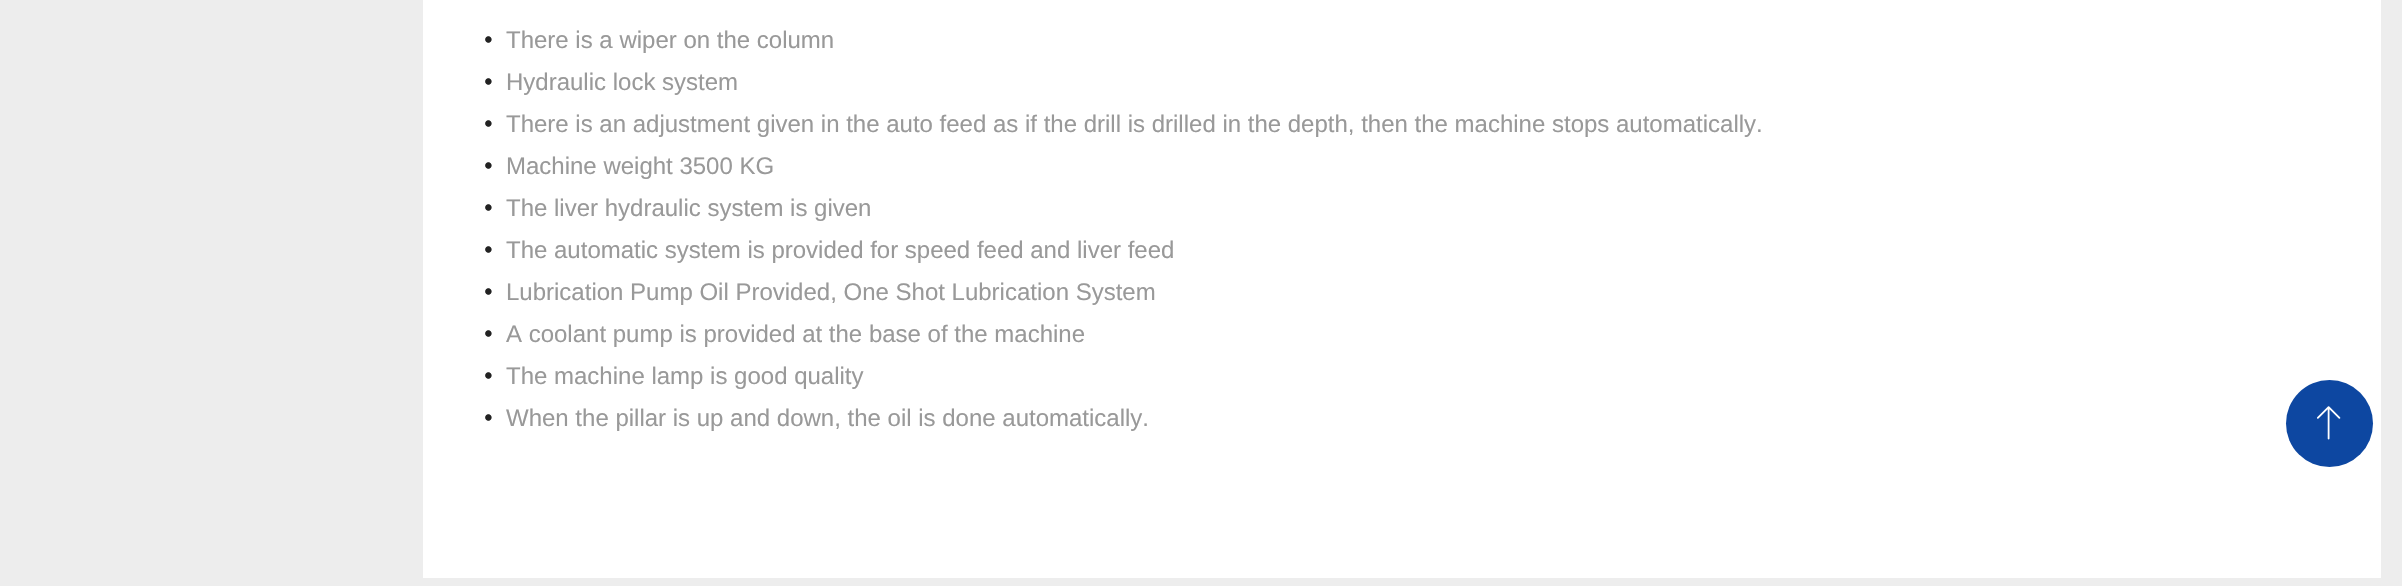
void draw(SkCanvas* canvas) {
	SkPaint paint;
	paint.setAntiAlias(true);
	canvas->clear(0xffededed);
	paint.setColor(0xffffffff);
	canvas->drawRect(SkRect::MakeXYWH(423, 0, 1958, 578), paint);
	SkFont f1(fontMgr->matchFamilyStyle("Hind Siliguri", SkFontStyle::Normal()), 24);
	f1.setSubpixel(true);
	paint.setColor(0xff222222);
	canvas->drawString("•", 483, 48, f1, paint);
	SkFont f2(fontMgr->matchFamilyStyle("Liberation Sans", SkFontStyle::Normal()), 24);
	f2.setSubpixel(true);
	paint.setColor(0xff999999);
	canvas->drawString("There is a wiper on the column", 506, 48, f2, paint);
	paint.setColor(0xff222222);
	canvas->drawString("•", 483, 90, f1, paint);
	paint.setColor(0xff999999);
	canvas->drawString("Hydraulic lock system", 506, 90, f2, paint);
	paint.setColor(0xff222222);
	canvas->drawString("•", 483, 132, f1, paint);
	paint.setColor(0xff999999);
	canvas->drawString("There is an adjustment given in the auto feed as if the drill is drilled in the depth, then the machine stops automatically.", 506, 132, f2, paint);
	paint.setColor(0xff222222);
	canvas->drawString("•", 483, 174, f1, paint);
	paint.setColor(0xff999999);
	canvas->drawString("Machine weight 3500 KG", 506, 174, f2, paint);
	paint.setColor(0xff222222);
	canvas->drawString("•", 483, 216, f1, paint);
	paint.setColor(0xff999999);
	canvas->drawString("The liver hydraulic system is given", 506, 216, f2, paint);
	paint.setColor(0xff222222);
	canvas->drawString("•", 483, 258, f1, paint);
	paint.setColor(0xff999999);
	canvas->drawString("The automatic system is provided for speed feed and liver feed", 506, 258, f2, paint);
	paint.setColor(0xff222222);
	canvas->drawString("•", 483, 300, f1, paint);
	paint.setColor(0xff999999);
	canvas->drawString("Lubrication Pump Oil Provided, One Shot Lubrication System", 506, 300, f2, paint);
	paint.setColor(0xff222222);
	canvas->drawString("•", 483, 342, f1, paint);
	paint.setColor(0xff999999);
	canvas->drawString("A coolant pump is provided at the base of the machine", 506, 342, f2, paint);
	paint.setColor(0xff222222);
	canvas->drawString("•", 483, 384, f1, paint);
	paint.setColor(0xff999999);
	canvas->drawString("The machine lamp is good quality", 506, 384, f2, paint);
	paint.setColor(0xff222222);
	canvas->drawString("•", 483, 426, f1, paint);
	paint.setColor(0xff999999);
	canvas->drawString("When the pillar is up and down, the oil is done automatically.", 506, 426, f2, paint);
	paint.setColor(0xff0d47a1);
	canvas->drawCircle(2329.5, 423.5, 43.5, paint);
	canvas->drawImageRect(SkImages::DeferredFromEncodedData(SkData::MakeFromFileName("img1.png")), SkRect::MakeXYWH(2317, 406, 24, 34), SkSamplingOptions());
}
